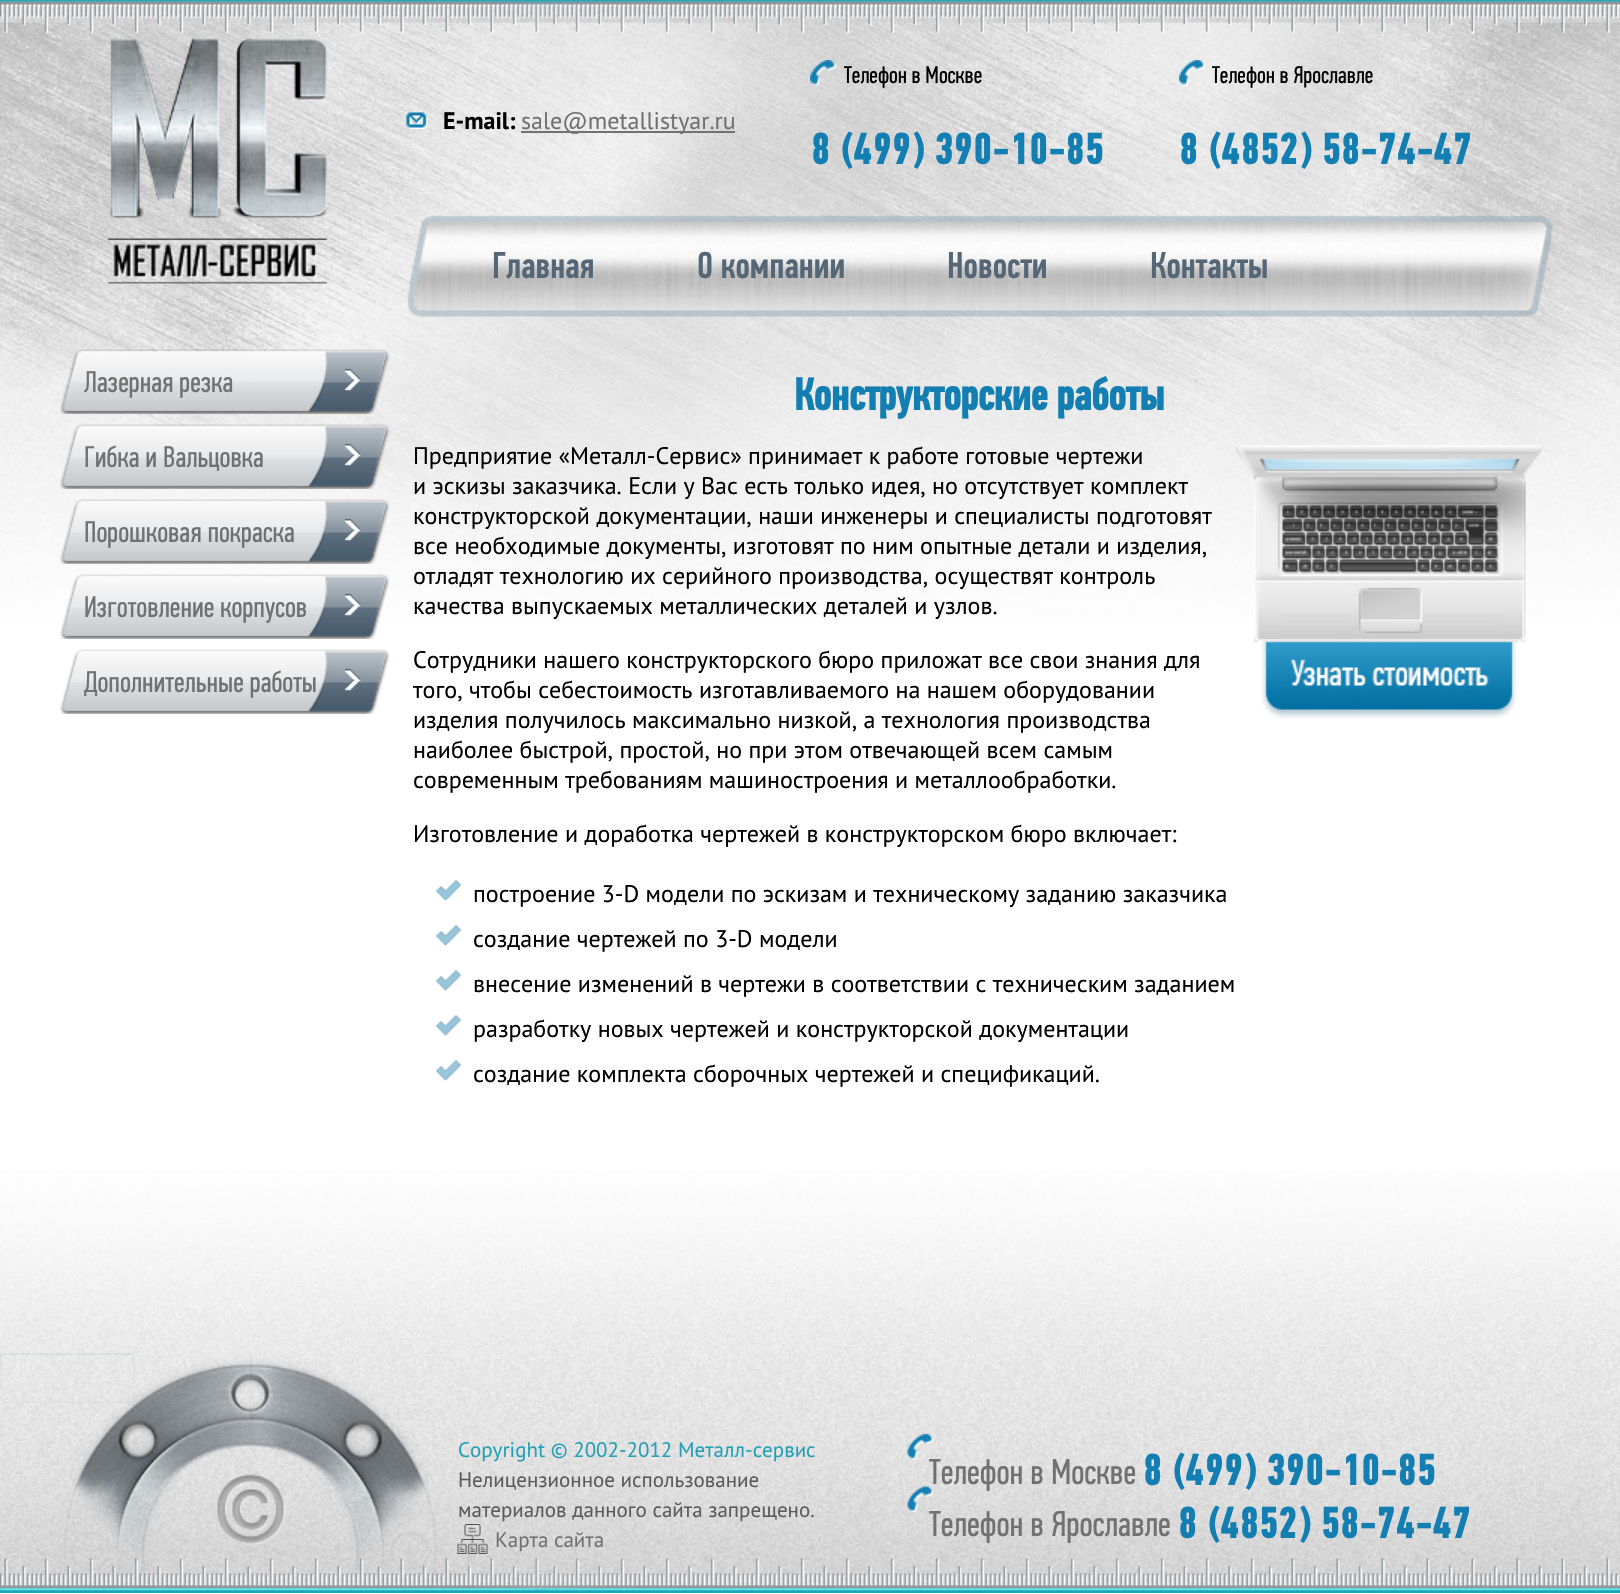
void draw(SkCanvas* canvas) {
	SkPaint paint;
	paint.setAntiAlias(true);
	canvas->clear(0xffffffff);
	canvas->drawImageRect(SkImages::DeferredFromEncodedData(SkData::MakeFromFileName("img1.png")), SkRect::MakeXYWH(0, 0, 1620, 617), SkSamplingOptions());
	canvas->drawImageRect(SkImages::DeferredFromEncodedData(SkData::MakeFromFileName("img2.png")), SkRect::MakeXYWH(107, 38, 222, 246), SkSamplingOptions());
	canvas->drawImageRect(SkImages::DeferredFromEncodedData(SkData::MakeFromFileName("img3.png")), SkRect::MakeXYWH(406, 112, 22, 17), SkSamplingOptions());
	SkFont f1(fontMgr->matchFamilyStyle("PT Sans", SkFontStyle::Bold()), 24);
	f1.setSubpixel(true);
	paint.setColor(0xff000000);
	canvas->drawString("E-mail:", 443, 129, f1, paint);
	paint.setColor(0xff717171);
	canvas->drawRect(SkRect::MakeXYWH(521, 131, 214, 2), paint);
	SkFont f2(fontMgr->matchFamilyStyle("PT Sans", SkFontStyle::Normal()), 24);
	f2.setSubpixel(true);
	canvas->drawString("sale@metallistyar.ru", 521, 129, f2, paint);
	canvas->drawImageRect(SkImages::DeferredFromEncodedData(SkData::MakeFromFileName("img4.png")), SkRect::MakeXYWH(810, 60, 26, 26), SkSamplingOptions());
	SkFont f3(fontMgr->matchFamilyStyle("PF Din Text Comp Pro", SkFontStyle::Normal()), 24);
	f3.setSubpixel(true);
	paint.setColor(0xff000000);
	canvas->drawString("Телефон в Москве", 844, 83, f3, paint);
	SkFont f4(fontMgr->matchFamilyStyle("PF Din Text Comp Pro", SkFontStyle::Bold()), 45);
	f4.setSubpixel(true);
	paint.setColor(0xff137eb1);
	canvas->drawString("8 (499) 390-10-85", 811, 164, f4, paint);
	canvas->drawImageRect(SkImages::DeferredFromEncodedData(SkData::MakeFromFileName("img5.png")), SkRect::MakeXYWH(1179, 60, 26, 26), SkSamplingOptions());
	paint.setColor(0xff000000);
	canvas->drawString("Телефон в Ярославле", 1212, 83, f3, paint);
	paint.setColor(0xff137eb1);
	canvas->drawString("8 (4852) 58-74-47", 1179, 164, f4, paint);
	canvas->drawImageRect(SkImages::DeferredFromEncodedData(SkData::MakeFromFileName("img6.png")), SkRect::MakeXYWH(407, 215, 1146, 102), SkSamplingOptions());
	SkFont f5(fontMgr->matchFamilyStyle("PF Din Text Comp Pro", SkFontStyle(500, SkFontStyle::kNormal_Width, SkFontStyle::kUpright_Slant)), 37.5);
	f5.setSubpixel(true);
	paint.setColor(0xff556676);
	canvas->drawString("Главная", 492, 278, f5, paint);
	canvas->drawString("О компании", 697, 278, f5, paint);
	canvas->drawString("Новости", 947, 278, f5, paint);
	canvas->drawString("Контакты", 1150, 278, f5, paint);
	canvas->drawImageRect(SkImages::DeferredFromEncodedData(SkData::MakeFromFileName("img7.png")), SkRect::MakeXYWH(60, 349, 330, 65), SkSamplingOptions());
	SkFont f6(fontMgr->matchFamilyStyle("PF Din Text Comp Pro", SkFontStyle::Normal()), 30);
	f6.setSubpixel(true);
	paint.setColor(0xff717171);
	canvas->drawString("Лазерная резка", 84, 392, f6, paint);
	canvas->drawImageRect(SkImages::DeferredFromEncodedData(SkData::MakeFromFileName("img8.png")), SkRect::MakeXYWH(60, 424, 330, 65), SkSamplingOptions());
	canvas->drawString("Гибка и Вальцовка", 84, 467, f6, paint);
	canvas->drawImageRect(SkImages::DeferredFromEncodedData(SkData::MakeFromFileName("img9.png")), SkRect::MakeXYWH(60, 499, 330, 65), SkSamplingOptions());
	canvas->drawString("Порошковая покраска", 84, 542, f6, paint);
	canvas->drawImageRect(SkImages::DeferredFromEncodedData(SkData::MakeFromFileName("img10.png")), SkRect::MakeXYWH(60, 574, 330, 65), SkSamplingOptions());
	canvas->drawString("Изготовление корпусов", 84, 617, f6, paint);
	canvas->drawImageRect(SkImages::DeferredFromEncodedData(SkData::MakeFromFileName("img11.png")), SkRect::MakeXYWH(60, 649, 330, 65), SkSamplingOptions());
	canvas->drawString("Дополнительные работы", 84, 692, f6, paint);
	SkFont f7(fontMgr->matchFamilyStyle("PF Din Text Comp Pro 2", SkFontStyle::Bold()), 45);
	f7.setSubpixel(true);
	paint.setColor(0xff137eb1);
	canvas->drawString("Конструкторские работы", 794, 410, f7, paint);
	paint.setColor(0xff000000);
	canvas->drawString("Предприятие «Металл-Сервис» принимает к работе готовые чертежи", 413, 464, f2, paint);
	canvas->drawString("и эскизы заказчика. Если у Вас есть только идея, но отсутствует комплект", 413, 494, f2, paint);
	canvas->drawString("конструкторской документации, наши инженеры и специалисты подготовят", 413, 524, f2, paint);
	canvas->drawString("все необходимые документы, изготовят по ним опытные детали и изделия,", 413, 554, f2, paint);
	canvas->drawString("отладят технологию их серийного производства, осуществят контроль", 413, 584, f2, paint);
	canvas->drawString("качества выпускаемых металлических деталей и узлов.", 413, 614, f2, paint);
	canvas->drawImageRect(SkImages::DeferredFromEncodedData(SkData::MakeFromFileName("img12.png")), SkRect::MakeXYWH(1236, 445, 306, 274), SkSamplingOptions());
	canvas->drawString("Сотрудники нашего конструкторского бюро приложат все свои знания для", 413, 668, f2, paint);
	canvas->drawString("того, чтобы себестоимость изготавливаемого на нашем оборудовании", 413, 698, f2, paint);
	canvas->drawString("изделия получилось максимально низкой, а технология производства", 413, 728, f2, paint);
	canvas->drawString("наиболее быстрой, простой, но при этом отвечающей всем самым", 413, 758, f2, paint);
	canvas->drawString("современным требованиям машиностроения и металлообработки.", 413, 788, f2, paint);
	canvas->drawString("Изготовление и доработка чертежей в конструкторском бюро включает:", 413, 842, f2, paint);
	canvas->drawImageRect(SkImages::DeferredFromEncodedData(SkData::MakeFromFileName("img13.png")), SkRect::MakeXYWH(436, 880, 25, 21), SkSamplingOptions());
	canvas->drawString("построение 3-D модели по эскизам и техническому заданию заказчика", 473, 902, f2, paint);
	canvas->drawImageRect(SkImages::DeferredFromEncodedData(SkData::MakeFromFileName("img13.png")), SkRect::MakeXYWH(436, 925, 25, 21), SkSamplingOptions());
	canvas->drawString("создание чертежей по 3-D модели", 473, 947, f2, paint);
	canvas->drawImageRect(SkImages::DeferredFromEncodedData(SkData::MakeFromFileName("img13.png")), SkRect::MakeXYWH(436, 970, 25, 21), SkSamplingOptions());
	canvas->drawString("внесение изменений в чертежи в соответствии с техническим заданием", 473, 992, f2, paint);
	canvas->drawImageRect(SkImages::DeferredFromEncodedData(SkData::MakeFromFileName("img13.png")), SkRect::MakeXYWH(436, 1015, 25, 21), SkSamplingOptions());
	canvas->drawString("разработку новых чертежей и конструкторской документации", 473, 1037, f2, paint);
	canvas->drawImageRect(SkImages::DeferredFromEncodedData(SkData::MakeFromFileName("img13.png")), SkRect::MakeXYWH(436, 1060, 25, 21), SkSamplingOptions());
	canvas->drawString("создание комплекта сборочных чертежей и спецификаций.", 473, 1082, f2, paint);
	paint.setStroke(true);
	paint.setStrokeWidth(2);
	paint.setColor(0xff8fbcbc);
	canvas->drawRect(SkRect::MakeXYWH(1, 1354, 133, 48), paint);
	canvas->drawImageRect(SkImages::DeferredFromEncodedData(SkData::MakeFromFileName("img14.png")), SkRect::MakeXYWH(0, 1170, 1620, 423), SkSamplingOptions());
	SkFont f8(fontMgr->matchFamilyStyle("PT Sans", SkFontStyle::Normal()), 21);
	f8.setSubpixel(true);
	paint.setStroke(false);
	paint.setColor(0xff249fb6);
	canvas->drawString("Copyright © 2002-2012 Металл-сервис", 458, 1457, f8, paint);
	paint.setColor(0xff5b5b5b);
	canvas->drawString("Нелицензионное использование", 458, 1487, f8, paint);
	canvas->drawString("материалов данного сайта запрещено.", 458, 1517, f8, paint);
	canvas->drawImageRect(SkImages::DeferredFromEncodedData(SkData::MakeFromFileName("img15.png")), SkRect::MakeXYWH(457, 1524, 31, 30), SkSamplingOptions());
	paint.setColor(0xff717171);
	canvas->drawString("Карта сайта", 495, 1547, f8, paint);
	SkFont f9(fontMgr->matchFamilyStyle("PF Din Text Comp Pro", SkFontStyle::Normal()), 36);
	f9.setSubpixel(true);
	canvas->drawString("Телефон в Москве", 929, 1484, f9, paint);
	canvas->drawImageRect(SkImages::DeferredFromEncodedData(SkData::MakeFromFileName("img16.png")), SkRect::MakeXYWH(907, 1434, 26, 26), SkSamplingOptions());
	paint.setColor(0xff137eb1);
	canvas->drawString("8 (499) 390-10-85", 1143, 1485, f4, paint);
	paint.setColor(0xff717171);
	canvas->drawString("Телефон в Ярославле", 929, 1536, f9, paint);
	canvas->drawImageRect(SkImages::DeferredFromEncodedData(SkData::MakeFromFileName("img17.png")), SkRect::MakeXYWH(907, 1486, 26, 26), SkSamplingOptions());
	paint.setColor(0xff137eb1);
	canvas->drawString("8 (4852) 58-74-47", 1178, 1538, f4, paint);
}
